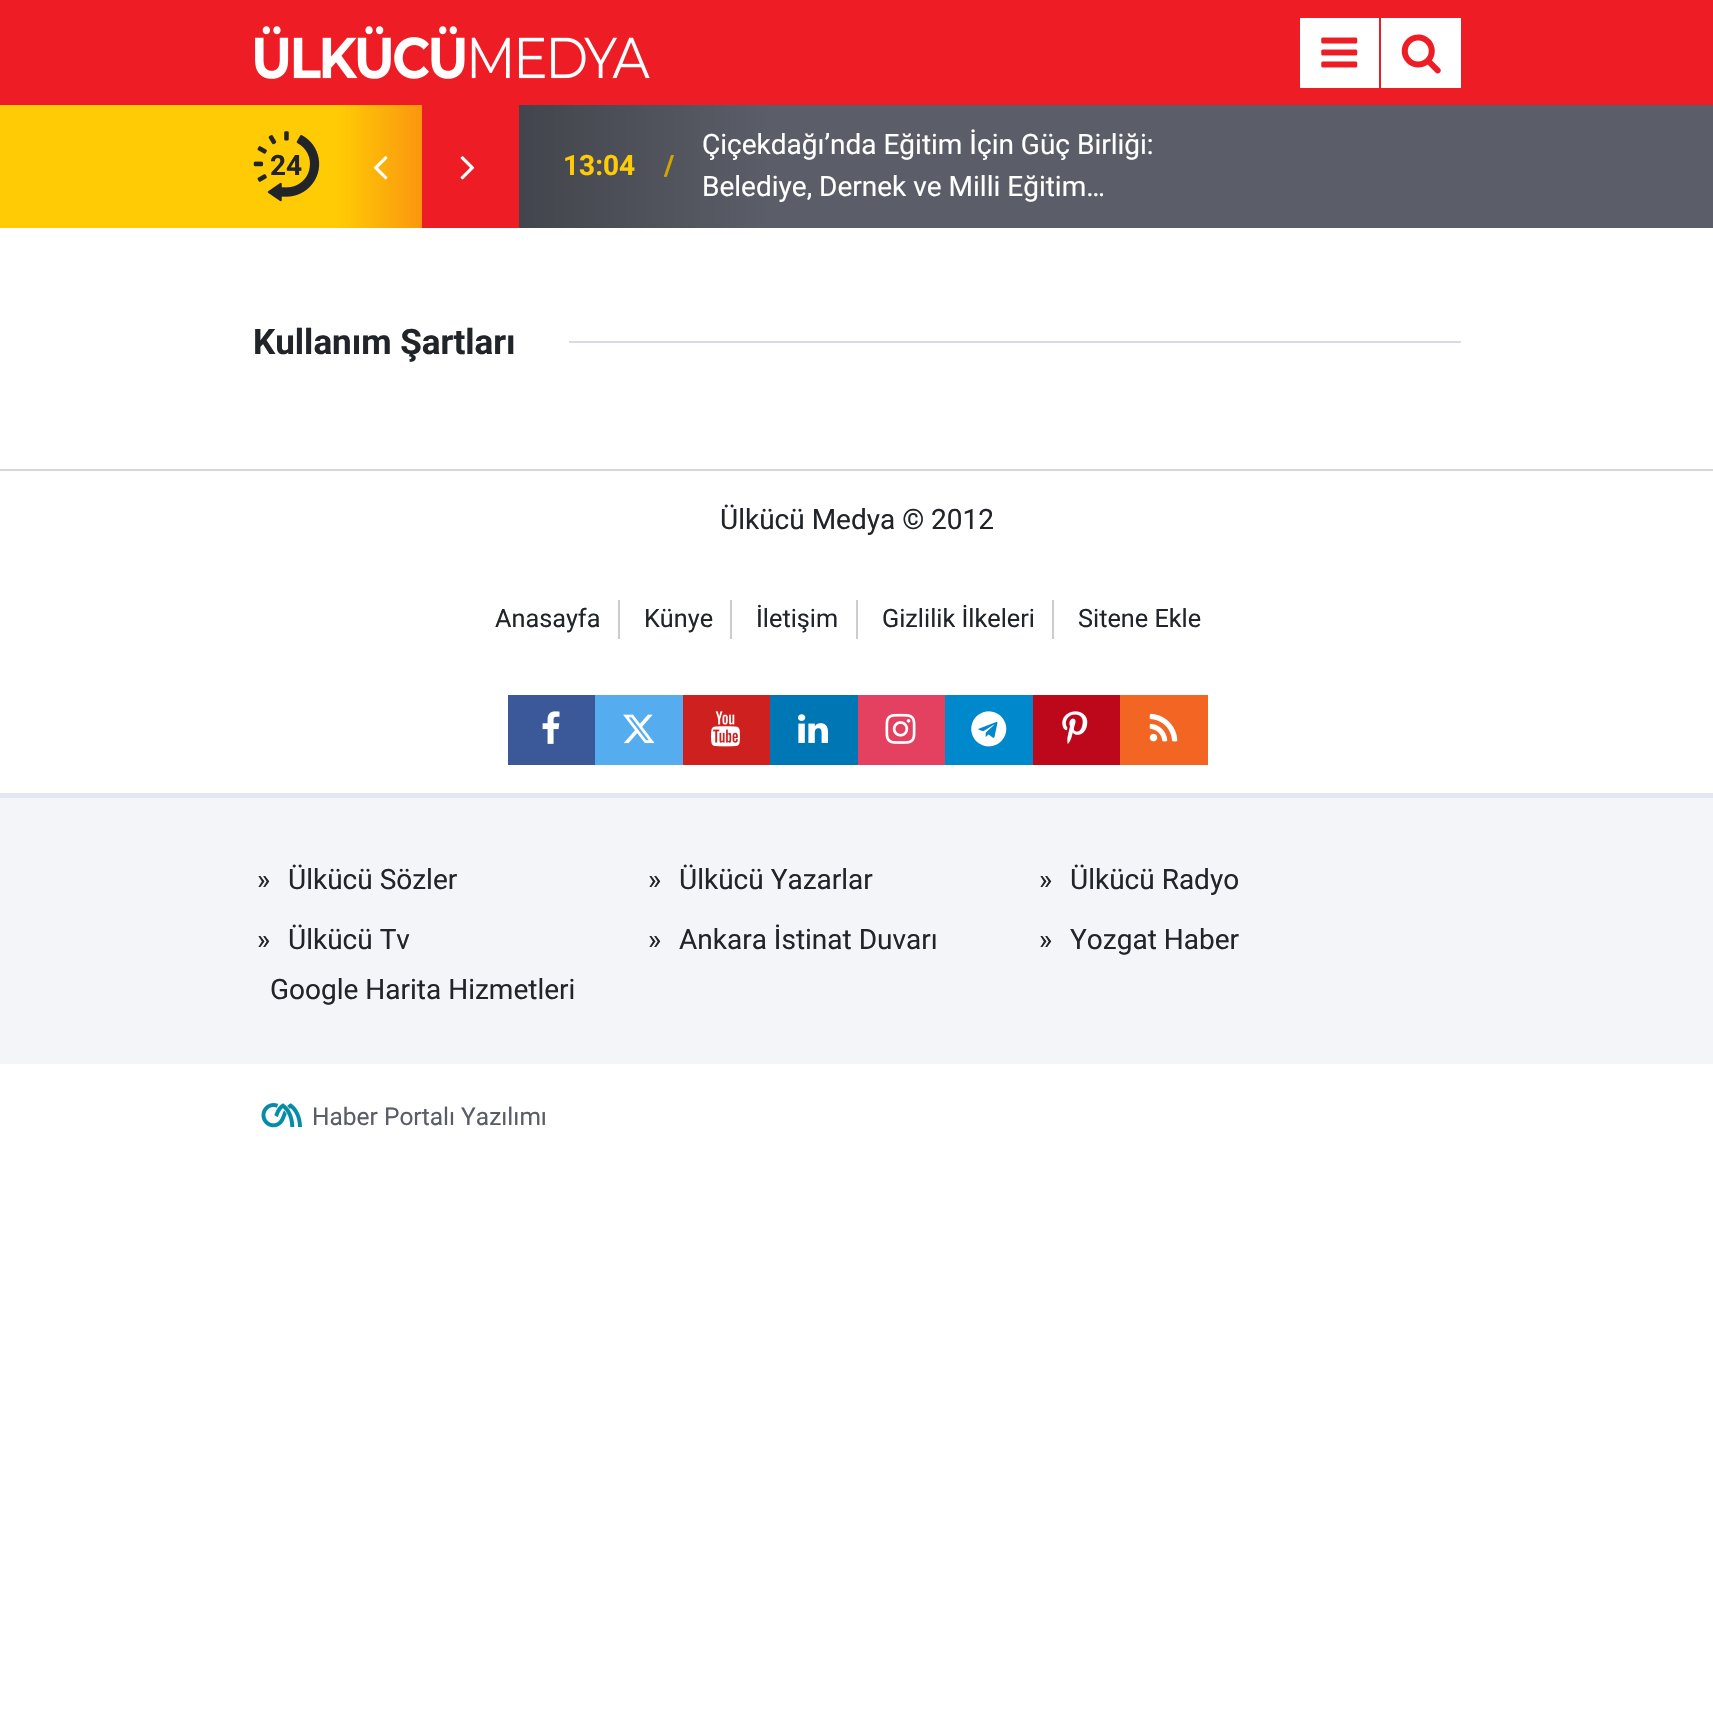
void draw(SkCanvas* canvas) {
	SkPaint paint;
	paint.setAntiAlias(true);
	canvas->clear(0xffffffff);
	paint.setColor(0xffee1c24);
	canvas->drawRect(SkRect::MakeXYWH(0, 0, 1713, 105), paint);
	canvas->drawImageRect(SkImages::DeferredFromEncodedData(SkData::MakeFromFileName("img1.png")), SkRect::MakeXYWH(255, 26, 395, 53), SkSamplingOptions());
	paint.setColor(0xffffffff);
	canvas->drawRect(SkRect::MakeXYWH(1300, 18, 79, 70), paint);
	canvas->drawImageRect(SkImages::DeferredFromEncodedData(SkData::MakeFromFileName("img2.png")), SkRect::MakeXYWH(1321, 37, 37, 31), SkSamplingOptions());
	canvas->drawRect(SkRect::MakeXYWH(1381, 18, 80, 70), paint);
	canvas->drawImageRect(SkImages::DeferredFromEncodedData(SkData::MakeFromFileName("img3.png")), SkRect::MakeXYWH(1401, 34, 40, 40), SkSamplingOptions());
	paint.setColor(0xffffcb05);
	canvas->drawRect(SkRect::MakeXYWH(0, 105, 254, 123), paint);
	paint.setColor(0xff5b5e68);
	canvas->drawRect(SkRect::MakeXYWH(1461, 105, 252, 123), paint);
	{
		const SkColor colors[] = {0xffffcb05, 0xfffa970e, 0xffee1c24, 0xffee1c24, 0xff43454d, 0xff5b5e68};
		const float stops[] = {0.07, 0.14, 0.14, 0.22, 0.22, 0.43};
		const SkPoint ends[] = {{253, 166}, {1460, 166}};
		paint.setShader(SkGradientShader::MakeLinear(ends, colors, stops, 6, SkTileMode::kClamp));
		paint.setAlpha(255);
	}
	canvas->drawRect(SkRect::MakeXYWH(254, 105, 1207, 123), paint);
	canvas->drawImageRect(SkImages::DeferredFromEncodedData(SkData::MakeFromFileName("img4.png")), SkRect::MakeXYWH(253, 131, 67, 71), SkSamplingOptions());
	SkFont f1(fontMgr->matchFamilyStyle("Roboto", SkFontStyle::Bold()), 28);
	f1.setSubpixel(true);
	paint.setShader(nullptr);
	paint.setColor(0xff212529);
	canvas->drawString("24", 270, 175, f1, paint);
	canvas->drawImageRect(SkImages::DeferredFromEncodedData(SkData::MakeFromFileName("img5.png")), SkRect::MakeXYWH(373, 156, 15, 24), SkSamplingOptions());
	canvas->drawImageRect(SkImages::DeferredFromEncodedData(SkData::MakeFromFileName("img6.png")), SkRect::MakeXYWH(460, 156, 15, 24), SkSamplingOptions());
	paint.setColor(0xffffcb05);
	canvas->drawString("13:04", 563, 175, f1, paint);
	paint.setColor(0xffd1a600);
	canvas->drawString("/", 664, 175, f1, paint);
	SkFont f2(fontMgr->matchFamilyStyle("Roboto", SkFontStyle::Normal()), 28);
	f2.setSubpixel(true);
	paint.setColor(0xffffffff);
	canvas->drawString("Çiçekdağı’nda Eğitim İçin Güç Birliği:", 702, 154, f2, paint);
	canvas->drawString("Belediye, Dernek ve Milli Eğitim…", 702, 196, f2, paint);
	SkFont f3(fontMgr->matchFamilyStyle("Roboto", SkFontStyle::Bold()), 35);
	f3.setSubpixel(true);
	paint.setColor(0xff212529);
	canvas->drawString("Kullanım Şartları", 253, 354, f3, paint);
	paint.setColor(0xffd9dbe2);
	canvas->drawRect(SkRect::MakeXYWH(569, 341, 892, 2), paint);
	paint.setColor(0xffd6d7d9);
	canvas->drawRect(SkRect::MakeXYWH(0, 469, 1713, 2), paint);
	paint.setColor(0xffe4e7f0);
	canvas->drawRect(SkRect::MakeXYWH(0, 793, 1713, 5), paint);
	paint.setColor(0xff212529);
	canvas->drawString("Ülkücü Medya © 2012", 720, 529, f2, paint);
	paint.setColor(0xffcccccc);
	canvas->drawRect(SkRect::MakeXYWH(618, 600, 2, 39), paint);
	SkFont f4(fontMgr->matchFamilyStyle("Roboto", SkFontStyle::Normal()), 25.25);
	f4.setSubpixel(true);
	paint.setColor(0xff212529);
	canvas->drawString("Anasayfa", 495, 627, f4, paint);
	paint.setColor(0xffcccccc);
	canvas->drawRect(SkRect::MakeXYWH(730, 600, 2, 39), paint);
	paint.setColor(0xff212529);
	canvas->drawString("Künye", 644, 627, f4, paint);
	paint.setColor(0xffcccccc);
	canvas->drawRect(SkRect::MakeXYWH(856, 600, 2, 39), paint);
	paint.setColor(0xff212529);
	canvas->drawString("İletişim", 756, 627, f4, paint);
	paint.setColor(0xffcccccc);
	canvas->drawRect(SkRect::MakeXYWH(1052, 600, 2, 39), paint);
	paint.setColor(0xff212529);
	canvas->drawString("Gizlilik İlkeleri", 882, 627, f4, paint);
	canvas->drawString("Sitene Ekle", 1078, 627, f4, paint);
	paint.setColor(0xff3b5999);
	canvas->drawRect(SkRect::MakeXYWH(508, 695, 87, 70), paint);
	canvas->drawImageRect(SkImages::DeferredFromEncodedData(SkData::MakeFromFileName("img7.png")), SkRect::MakeXYWH(542, 711, 18, 33), SkSamplingOptions());
	paint.setColor(0xff55acee);
	canvas->drawRect(SkRect::MakeXYWH(595, 695, 88, 70), paint);
	canvas->drawImageRect(SkImages::DeferredFromEncodedData(SkData::MakeFromFileName("img8.png")), SkRect::MakeXYWH(623, 714, 32, 30), SkSamplingOptions());
	paint.setColor(0xffcd201f);
	canvas->drawRect(SkRect::MakeXYWH(683, 695, 87, 70), paint);
	canvas->drawImageRect(SkImages::DeferredFromEncodedData(SkData::MakeFromFileName("img9.png")), SkRect::MakeXYWH(711, 711, 29, 36), SkSamplingOptions());
	paint.setColor(0xff0077b5);
	canvas->drawRect(SkRect::MakeXYWH(770, 695, 88, 70), paint);
	canvas->drawImageRect(SkImages::DeferredFromEncodedData(SkData::MakeFromFileName("img10.png")), SkRect::MakeXYWH(798, 714, 30, 29), SkSamplingOptions());
	paint.setColor(0xffe4405f);
	canvas->drawRect(SkRect::MakeXYWH(858, 695, 87, 70), paint);
	canvas->drawImageRect(SkImages::DeferredFromEncodedData(SkData::MakeFromFileName("img11.png")), SkRect::MakeXYWH(885, 713, 31, 31), SkSamplingOptions());
	paint.setColor(0xff0088cc);
	canvas->drawRect(SkRect::MakeXYWH(945, 695, 88, 70), paint);
	canvas->drawImageRect(SkImages::DeferredFromEncodedData(SkData::MakeFromFileName("img12.png")), SkRect::MakeXYWH(971, 711, 36, 36), SkSamplingOptions());
	paint.setColor(0xffbd081c);
	canvas->drawRect(SkRect::MakeXYWH(1033, 695, 87, 70), paint);
	canvas->drawImageRect(SkImages::DeferredFromEncodedData(SkData::MakeFromFileName("img13.png")), SkRect::MakeXYWH(1062, 711, 26, 33), SkSamplingOptions());
	paint.setColor(0xfff26522);
	canvas->drawRect(SkRect::MakeXYWH(1120, 695, 88, 70), paint);
	canvas->drawImageRect(SkImages::DeferredFromEncodedData(SkData::MakeFromFileName("img14.png")), SkRect::MakeXYWH(1149, 713, 29, 29), SkSamplingOptions());
	paint.setColor(0xfff4f5f8);
	canvas->drawRect(SkRect::MakeXYWH(0, 798, 1713, 266), paint);
	paint.setColor(0xff212529);
	canvas->drawString("»", 257, 889, f2, paint);
	canvas->drawString("Ülkücü Sözler", 288, 889, f2, paint);
	canvas->drawString("»", 648, 889, f2, paint);
	canvas->drawString("Ülkücü Yazarlar", 679, 889, f2, paint);
	canvas->drawString("»", 1039, 889, f2, paint);
	canvas->drawString("Ülkücü Radyo", 1070, 889, f2, paint);
	canvas->drawString("»", 257, 949, f2, paint);
	canvas->drawString("Ülkücü Tv", 288, 949, f2, paint);
	canvas->drawString("»", 648, 949, f2, paint);
	canvas->drawString("Ankara İstinat Duvarı", 679, 949, f2, paint);
	canvas->drawString("»", 1039, 949, f2, paint);
	canvas->drawString("Yozgat Haber", 1070, 949, f2, paint);
	canvas->drawString("Google Harita Hizmetleri", 270, 999, f2, paint);
	canvas->drawImageRect(SkImages::DeferredFromEncodedData(SkData::MakeFromFileName("img15.png")), SkRect::MakeXYWH(261, 1103, 41, 25), SkSamplingOptions());
	SkFont f5(fontMgr->matchFamilyStyle("Roboto", SkFontStyle::Normal()), 24.5);
	f5.setSubpixel(true);
	paint.setColor(0xff5a5c67);
	canvas->drawString("Haber Portalı Yazılımı", 312, 1125, f5, paint);
}
